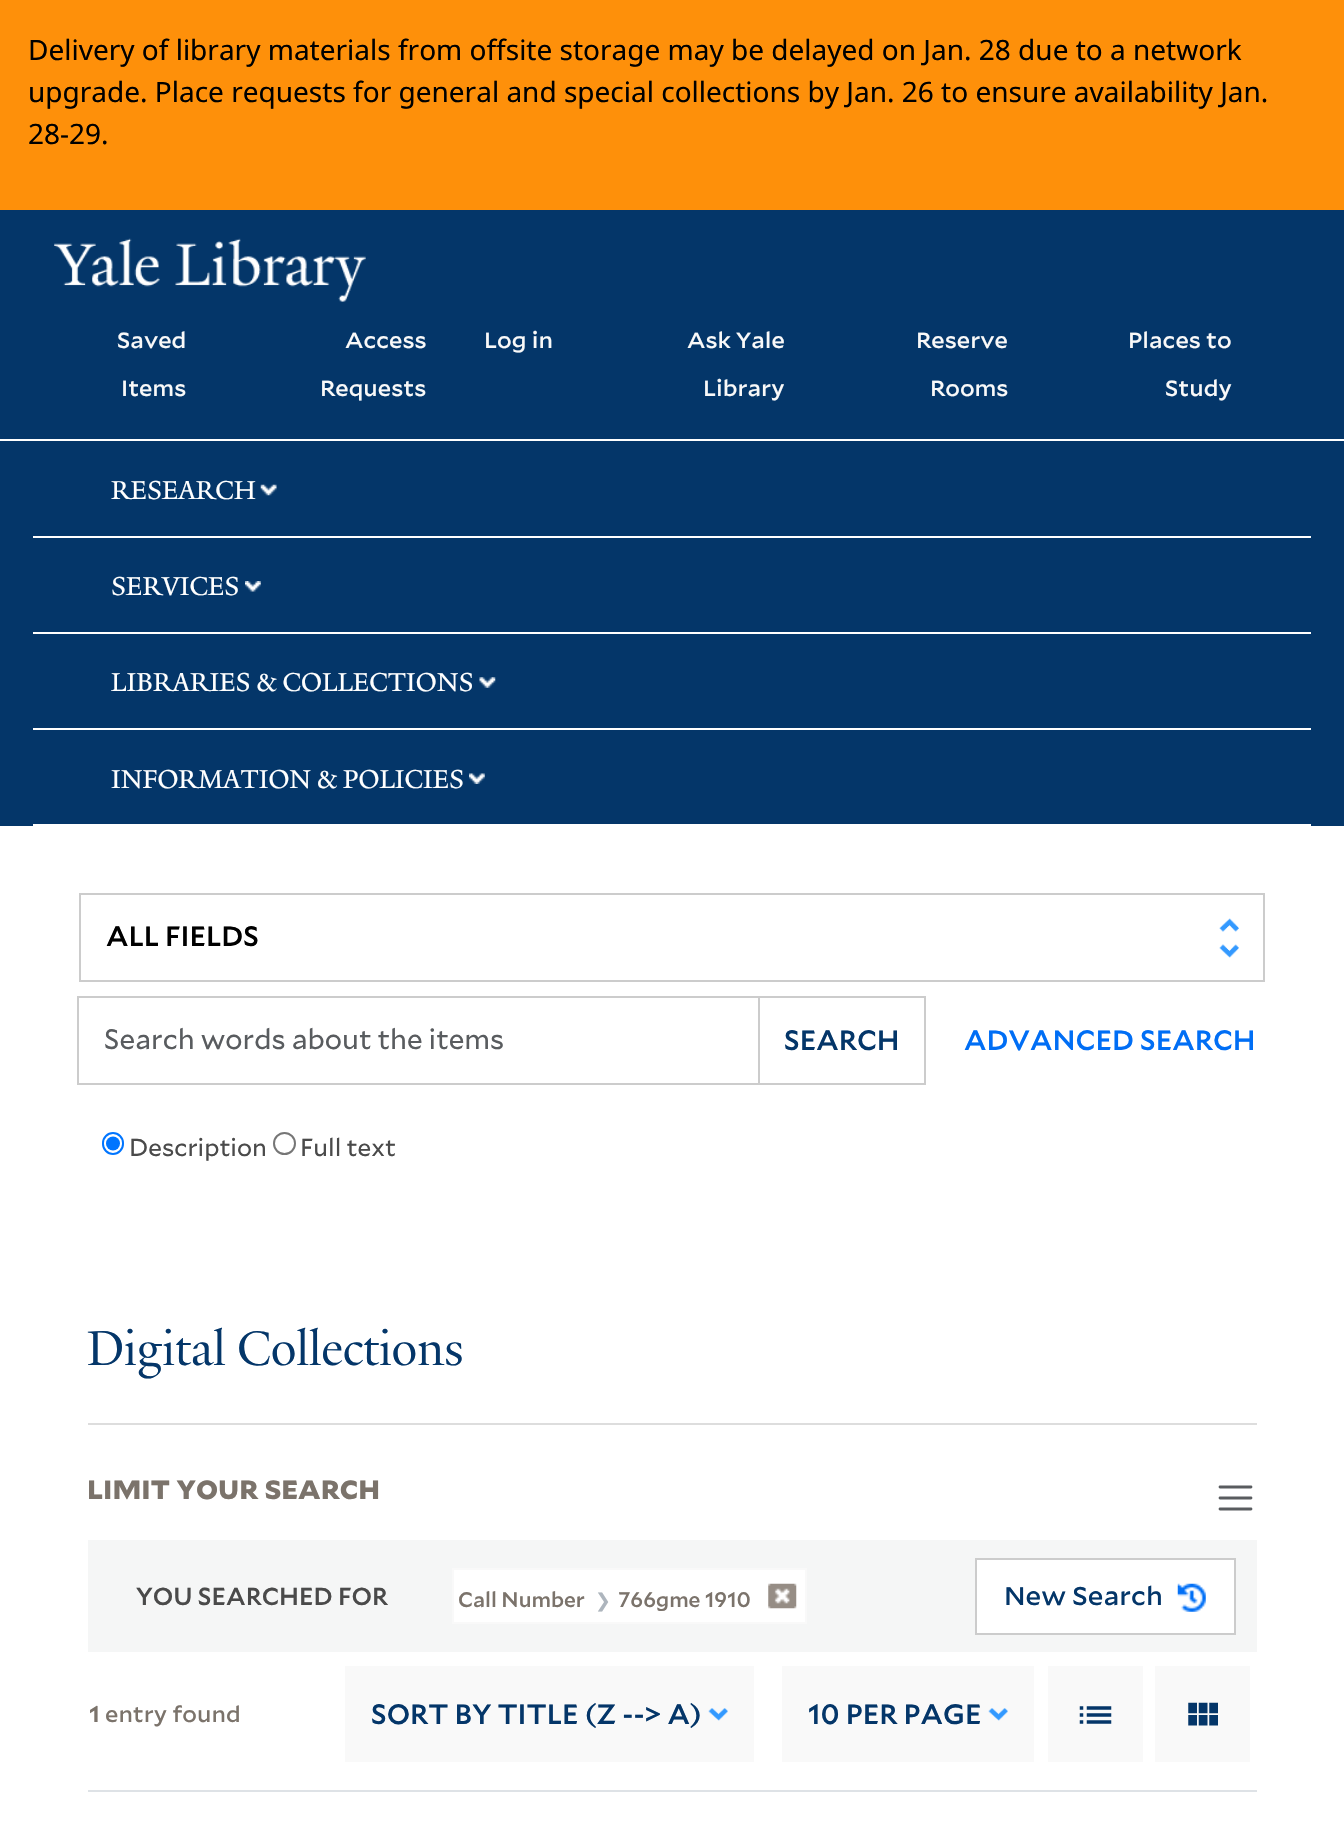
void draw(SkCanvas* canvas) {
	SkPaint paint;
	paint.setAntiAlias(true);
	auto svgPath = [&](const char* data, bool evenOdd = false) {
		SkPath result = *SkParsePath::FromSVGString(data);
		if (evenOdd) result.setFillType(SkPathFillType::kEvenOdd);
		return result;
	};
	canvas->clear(0xffffffff);
	paint.setColor(0xfffe900a);
	canvas->drawRect(SkRect::MakeXYWH(0, 0, 1344, 210), paint);
	SkFont f1(fontMgr->matchFamilyStyle("Noto Sans", SkFontStyle::Normal()), 28);
	f1.setSubpixel(true);
	paint.setColor(0xff000000);
	canvas->drawString("Delivery of library materials from offsite storage may be delayed on Jan. 28 due to a network", 28, 60, f1, paint);
	canvas->drawString("upgrade. Place requests for general and special collections by Jan. 26 to ensure availability Jan.", 28, 102, f1, paint);
	canvas->drawString("28-29.", 28, 144, f1, paint);
	paint.setColor(0xff043669);
	canvas->drawRect(SkRect::MakeXYWH(0, 210, 1344, 229), paint);
	canvas->drawImageRect(SkImages::DeferredFromEncodedData(SkData::MakeFromFileName("img1.png")), SkRect::MakeXYWH(54, 238, 312, 64), SkSamplingOptions());
	SkFont f2(fontMgr->matchFamilyStyle("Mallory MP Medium", SkFontStyle(500, SkFontStyle::kNormal_Width, SkFontStyle::kUpright_Slant)), 21);
	f2.setSubpixel(true);
	paint.setColor(0xfff9f9f9);
	canvas->drawString("Saved", 117, 348, f2, paint);
	canvas->drawString("Items", 121, 396, f2, paint);
	canvas->drawString("Access", 345, 348, f2, paint);
	canvas->drawString("Requests", 320, 396, f2, paint);
	canvas->drawString("Log in", 484, 348, f2, paint);
	canvas->drawString("Ask Yale", 687, 348, f2, paint);
	canvas->drawString("Library", 703, 396, f2, paint);
	canvas->drawString("Reserve", 916, 348, f2, paint);
	canvas->drawString("Rooms", 930, 396, f2, paint);
	canvas->drawString("Places to", 1128, 348, f2, paint);
	canvas->drawString("Study", 1165, 396, f2, paint);
	paint.setColor(0xff043669);
	canvas->drawRect(SkRect::MakeXYWH(0, 441, 1344, 385), paint);
	paint.setColor(0xffffffff);
	canvas->drawRect(SkRect::MakeXYWH(33, 536, 1278, 2), paint);
	SkFont f3(fontMgr->matchFamilyStyle("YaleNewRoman", SkFontStyle::Normal()), 28);
	f3.setSubpixel(true);
	canvas->drawString("RESEARCH", 111, 499, f3, paint);
	canvas->drawImageRect(SkImages::DeferredFromEncodedData(SkData::MakeFromFileName("img2.png")), SkRect::MakeXYWH(260, 484, 17, 12), SkSamplingOptions());
	canvas->drawRect(SkRect::MakeXYWH(33, 632, 1278, 2), paint);
	canvas->drawString("SERVICES", 111, 595, f3, paint);
	canvas->drawImageRect(SkImages::DeferredFromEncodedData(SkData::MakeFromFileName("img3.png")), SkRect::MakeXYWH(245, 581, 16, 11), SkSamplingOptions());
	canvas->drawRect(SkRect::MakeXYWH(33, 728, 1278, 2), paint);
	canvas->drawString("LIBRARIES & COLLECTIONS", 111, 691, f3, paint);
	canvas->drawImageRect(SkImages::DeferredFromEncodedData(SkData::MakeFromFileName("img4.png")), SkRect::MakeXYWH(479, 677, 17, 11), SkSamplingOptions());
	canvas->drawRect(SkRect::MakeXYWH(33, 824, 1278, 2), paint);
	canvas->drawString("INFORMATION & POLICIES", 111, 788, f3, paint);
	canvas->drawImageRect(SkImages::DeferredFromEncodedData(SkData::MakeFromFileName("img5.png")), SkRect::MakeXYWH(469, 773, 16, 11), SkSamplingOptions());
	canvas->drawImageRect(SkImages::DeferredFromEncodedData(SkData::MakeFromFileName("img6.png")), SkRect::MakeXYWH(1219, 918, 20, 40), SkSamplingOptions());
	paint.setStroke(true);
	paint.setStrokeWidth(2);
	paint.setColor(0xffcccccc);
	canvas->drawRect(SkRect::MakeXYWH(80, 894, 1184, 87), paint);
	SkFont f4(fontMgr->matchFamilyStyle("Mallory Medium", SkFontStyle(500, SkFontStyle::kNormal_Width, SkFontStyle::kUpright_Slant)), 28);
	f4.setSubpixel(true);
	paint.setStroke(false);
	paint.setColor(0xff000000);
	canvas->drawString("ALL FIELDS", 106, 946, f4, paint);
	paint.setStroke(true);
	paint.setColor(0xffcccccc);
	canvas->drawRect(SkRect::MakeXYWH(78, 997, 681, 87), paint);
	SkFont f5(fontMgr->matchFamilyStyle("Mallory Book", SkFontStyle::Normal()), 28);
	f5.setSubpixel(true);
	paint.setStroke(false);
	paint.setColor(0xff595c5f);
	canvas->drawString("Search words about the items", 104, 1049, f5, paint);
	paint.setStroke(true);
	paint.setColor(0xffcccccc);
	canvas->drawRect(SkRect::MakeXYWH(759, 997, 166, 87), paint);
	paint.setStroke(false);
	paint.setColor(0xff043669);
	canvas->drawString("SEARCH", 784, 1050, f4, paint);
	paint.setColor(0xff006ef5);
	canvas->drawString("ADVANCED SEARCH", 964, 1050, f4, paint);
	paint.setStroke(true);
	paint.setColor(0xff0075ff);
	canvas->drawRoundRect(SkRect::MakeXYWH(103, 1133, 20, 21), 10, 10, paint);
	paint.setStroke(false);
	canvas->drawCircle(113, 1143.5, 7, paint);
	SkFont f6(fontMgr->matchFamilyStyle("Mallory Book", SkFontStyle::Normal()), 24.5);
	f6.setSubpixel(true);
	paint.setColor(0xff4a4a4a);
	canvas->drawString("Description", 129, 1156, f6, paint);
	paint.setStroke(true);
	paint.setColor(0xff767676);
	canvas->drawCircle(284.5, 1143.5, 10.5, paint);
	paint.setStroke(false);
	paint.setColor(0xff4a4a4a);
	canvas->drawString("Full text", 300, 1156, f6, paint);
	paint.setColor(0xffdddddd);
	canvas->drawRect(SkRect::MakeXYWH(88, 1423, 1169, 2), paint);
	SkFont f7(fontMgr->matchFamilyStyle("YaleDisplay", SkFontStyle::Normal()), 52.5);
	f7.setSubpixel(true);
	paint.setColor(0xff043669);
	canvas->drawString("Digital Collections", 87, 1365, f7, paint);
	SkFont f8(fontMgr->matchFamilyStyle("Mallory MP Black", SkFontStyle(900, SkFontStyle::kNormal_Width, SkFontStyle::kUpright_Slant)), 25.25);
	f8.setSubpixel(true);
	paint.setColor(0xff7b736b);
	canvas->drawString("LIMIT YOUR SEARCH", 87, 1499, f8, paint);
	paint.setStroke(true);
	paint.setStrokeWidth(2.8);
	paint.setStrokeCap(SkPaint::kRound_Cap);
	paint.setColor(0xff595c5f);
	canvas->drawPath(svgPath("M1220 1487H1251M1220 1498H1251M1220 1509H1251"), paint);
	paint.setStroke(false);
	paint.setColor(0xfff5f6f6);
	canvas->drawRect(SkRect::MakeXYWH(88, 1540, 1169, 112), paint);
	SkFont f9(fontMgr->matchFamilyStyle("Mallory Medium", SkFontStyle(500, SkFontStyle::kNormal_Width, SkFontStyle::kUpright_Slant)), 24.5);
	f9.setSubpixel(true);
	paint.setColor(0xff4a4a4a);
	canvas->drawString("YOU SEARCHED FOR", 136, 1605, f9, paint);
	paint.setColor(0xffffffff);
	canvas->drawRect(SkRect::MakeXYWH(453, 1569, 353, 54), paint);
	paint.setStroke(true);
	paint.setStrokeWidth(2);
	paint.setStrokeCap(SkPaint::kButt_Cap);
	paint.setColor(0xfff9f9f9);
	canvas->drawRect(SkRect::MakeXYWH(453, 1569, 353, 54), paint);
	SkFont f10(fontMgr->matchFamilyStyle("Mallory Medium", SkFontStyle(500, SkFontStyle::kNormal_Width, SkFontStyle::kUpright_Slant)), 21);
	f10.setSubpixel(true);
	paint.setStroke(false);
	paint.setColor(0xff7b736b);
	canvas->drawString("Call Number", 458, 1607, f10, paint);
	SkFont f11(fontMgr->matchFamilyStyle("DejaVu Sans", SkFontStyle::Normal()), 19);
	f11.setSubpixel(true);
	paint.setColor(0xffadb5bd);
	canvas->drawString("❯", 595, 1607, f11, paint);
	paint.setColor(0xff7b736b);
	canvas->drawString("766gme 1910", 618, 1607, f10, paint);
	canvas->drawImageRect(SkImages::DeferredFromEncodedData(SkData::MakeFromFileName("img7.png")), SkRect::MakeXYWH(768, 1583, 29, 26), SkSamplingOptions());
	paint.setColor(0xffffffff);
	canvas->drawRect(SkRect::MakeXYWH(976, 1559, 259, 75), paint);
	paint.setStroke(true);
	paint.setColor(0xffcccccc);
	canvas->drawRect(SkRect::MakeXYWH(976, 1559, 259, 75), paint);
	SkFont f12(fontMgr->matchFamilyStyle("Mallory MP Medium", SkFontStyle(500, SkFontStyle::kNormal_Width, SkFontStyle::kUpright_Slant)), 24.5);
	f12.setSubpixel(true);
	paint.setStroke(false);
	paint.setColor(0xff043669);
	canvas->drawString("New Search", 1004, 1605, f12, paint);
	canvas->drawImageRect(SkImages::DeferredFromEncodedData(SkData::MakeFromFileName("img8.png")), SkRect::MakeXYWH(1177, 1583, 29, 29), SkSamplingOptions());
	paint.setColor(0xffdee2e6);
	canvas->drawRect(SkRect::MakeXYWH(88, 1790, 1169, 2), paint);
	SkFont f13(fontMgr->matchFamilyStyle("Mallory MP Medium", SkFontStyle::Bold()), 21);
	f13.setSubpixel(true);
	paint.setColor(0xff7b736b);
	canvas->drawString("1", 89, 1722, f13, paint);
	canvas->drawString("entry found", 105, 1722, f2, paint);
	paint.setColor(0xfff9f9f9);
	canvas->drawRect(SkRect::MakeXYWH(345, 1666, 409, 96), paint);
	paint.setColor(0xff043669);
	canvas->drawString("SORT BY TITLE (Z --> A)", 371, 1724, f4, paint);
	canvas->drawImageRect(SkImages::DeferredFromEncodedData(SkData::MakeFromFileName("img9.png")), SkRect::MakeXYWH(708, 1708, 20, 13), SkSamplingOptions());
	paint.setColor(0xfff9f9f9);
	canvas->drawRect(SkRect::MakeXYWH(782, 1666, 252, 96), paint);
	paint.setColor(0xff043669);
	canvas->drawString("10 PER PAGE", 808, 1724, f4, paint);
	canvas->drawImageRect(SkImages::DeferredFromEncodedData(SkData::MakeFromFileName("img9.png")), SkRect::MakeXYWH(988, 1708, 20, 13), SkSamplingOptions());
	paint.setColor(0xfff9f9f9);
	canvas->drawRect(SkRect::MakeXYWH(1048, 1666, 95, 96), paint);
	canvas->drawImageRect(SkImages::DeferredFromEncodedData(SkData::MakeFromFileName("img10.png")), SkRect::MakeXYWH(1079, 1706, 33, 18), SkSamplingOptions());
	canvas->drawRect(SkRect::MakeXYWH(1155, 1666, 95, 96), paint);
	canvas->drawImageRect(SkImages::DeferredFromEncodedData(SkData::MakeFromFileName("img11.png")), SkRect::MakeXYWH(1188, 1702, 30, 24), SkSamplingOptions());
}
